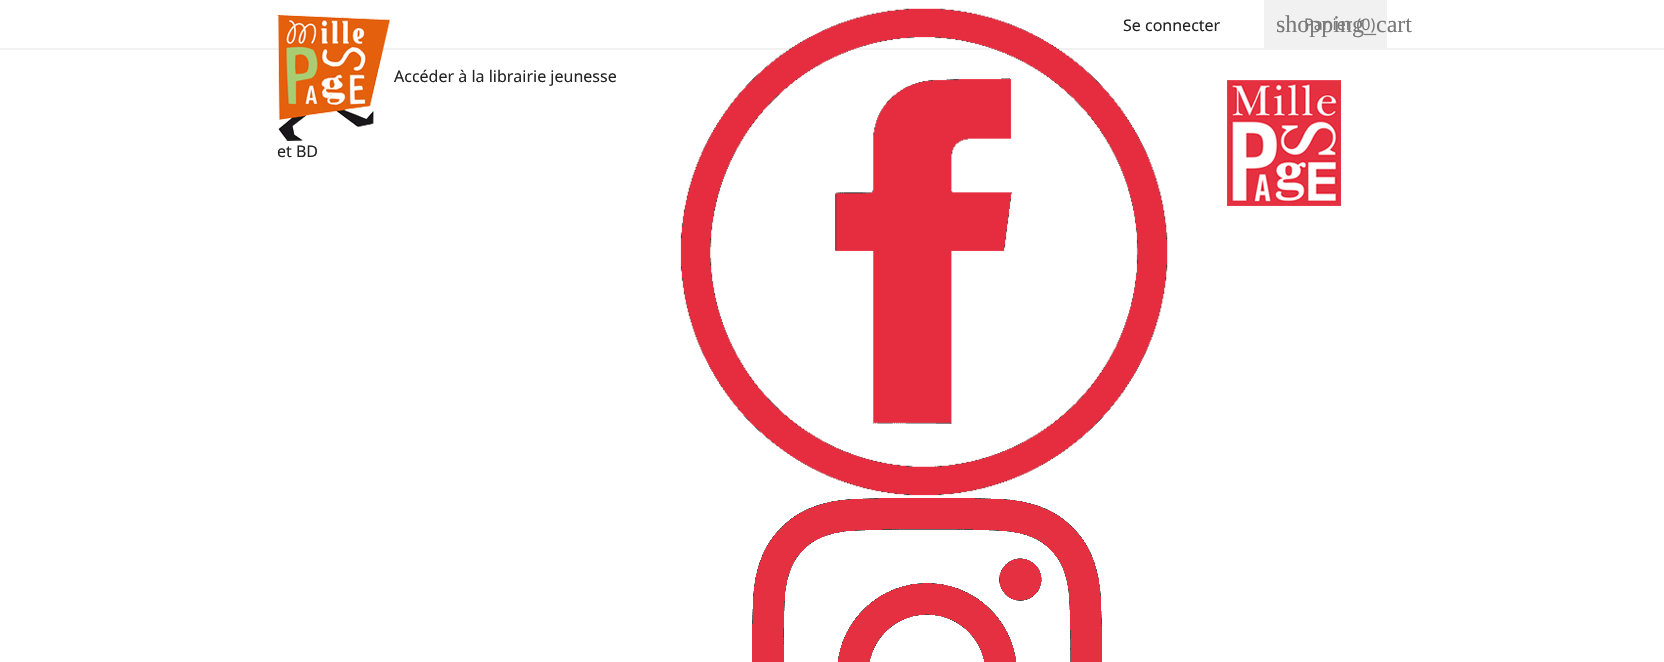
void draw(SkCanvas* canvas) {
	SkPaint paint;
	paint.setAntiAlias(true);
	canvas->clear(0xffffffff);
	paint.setColor(0xfff1f1f1);
	canvas->drawRect(SkRect::MakeXYWH(0, 48, 1664, 2), paint);
	canvas->drawImageRect(SkImages::DeferredFromEncodedData(SkData::MakeFromFileName("img1.png")), SkRect::MakeXYWH(680, 8, 488, 488), SkSamplingOptions());
	canvas->drawImageRect(SkImages::DeferredFromEncodedData(SkData::MakeFromFileName("img2.png")), SkRect::MakeXYWH(752, 498, 350, 164), SkSamplingOptions());
	SkFont f1(fontMgr->matchFamilyStyle("Noto Sans", SkFontStyle::Normal()), 16);
	f1.setSubpixel(true);
	paint.setColor(0xff232323);
	canvas->drawString("Se connecter", 1123, 31, f1, paint);
	paint.setColor(0xfff1f1f1);
	canvas->drawRect(SkRect::MakeXYWH(1264, 0, 123, 48), paint);
	SkFont f2(fontMgr->matchFamilyStyle("Liberation Serif", SkFontStyle::Normal()), 24);
	f2.setSubpixel(true);
	paint.setColor(0xff7a7a7a);
	canvas->drawString("shopping_cart", 1276, 32, f2, paint);
	canvas->drawString("Panier (0)", 1304, 30, f1, paint);
	canvas->drawImageRect(SkImages::DeferredFromEncodedData(SkData::MakeFromFileName("img3.png")), SkRect::MakeXYWH(277, 15, 113, 126), SkSamplingOptions());
	paint.setColor(0xff232323);
	canvas->drawString("Accéder à la librairie jeunesse", 394, 82, f1, paint);
	canvas->drawString("et BD", 277, 157, f1, paint);
	canvas->drawImageRect(SkImages::DeferredFromEncodedData(SkData::MakeFromFileName("img4.png")), SkRect::MakeXYWH(1227, 80, 114, 126), SkSamplingOptions());
}
